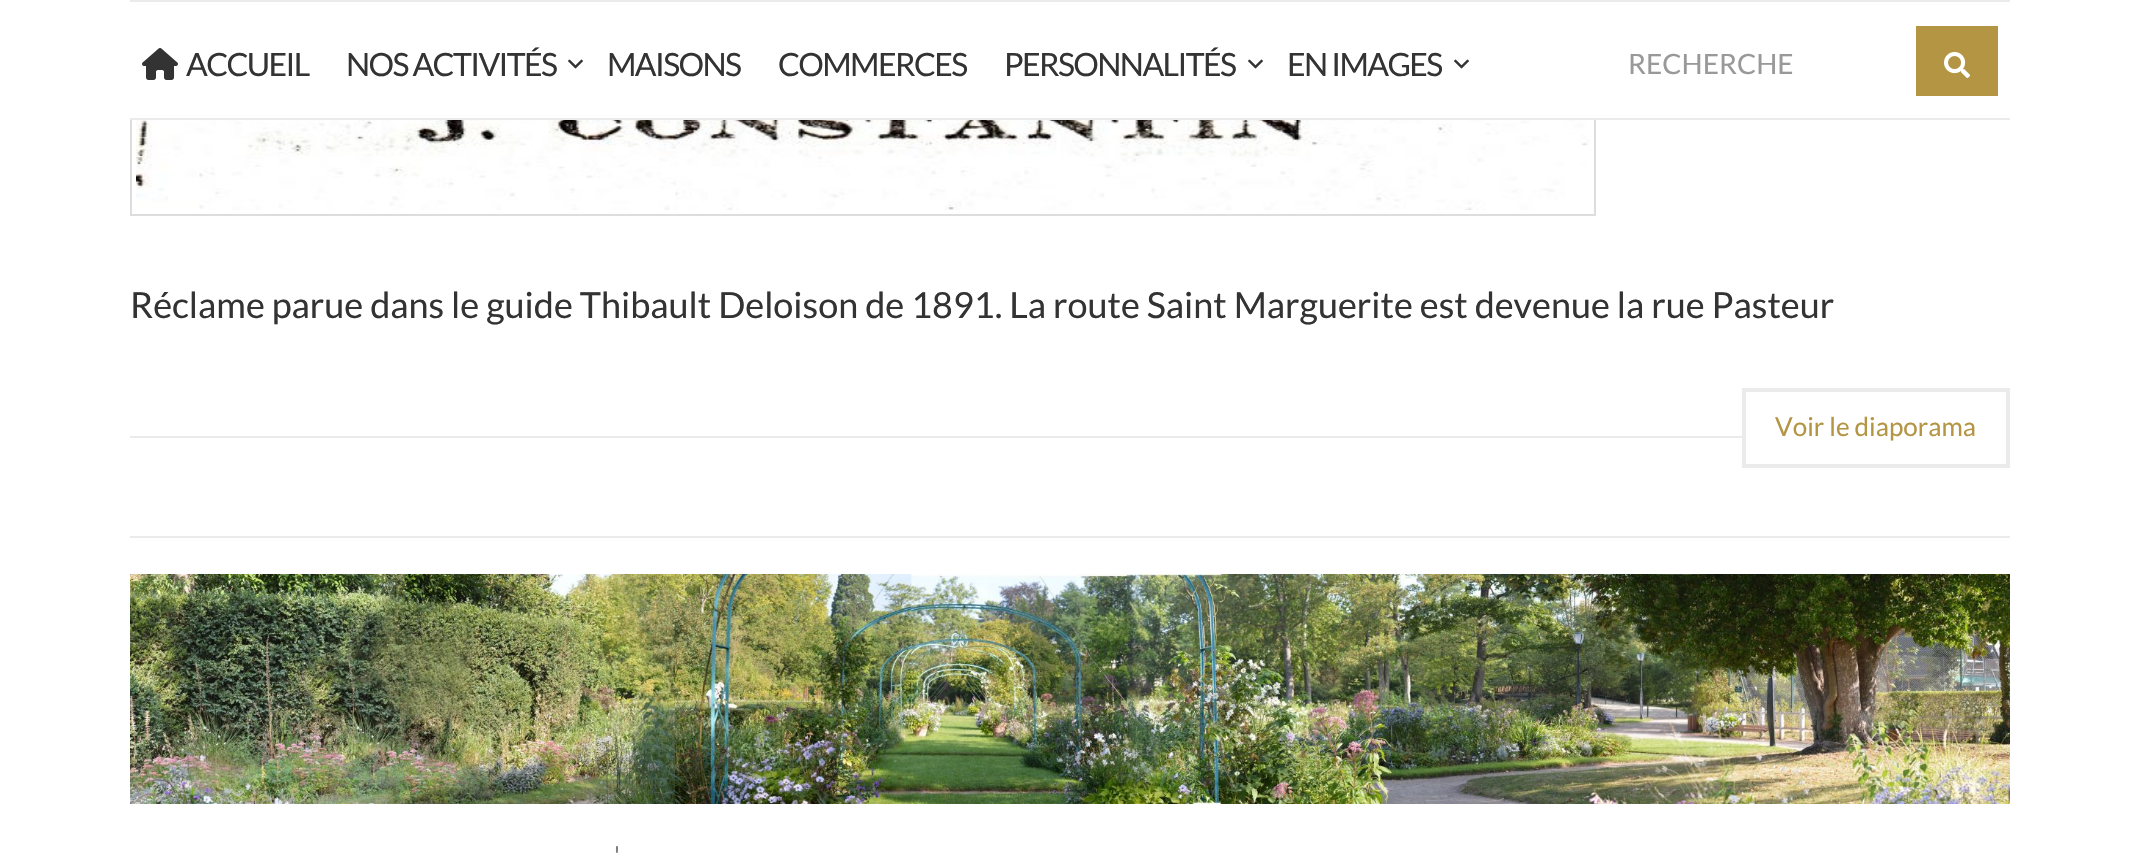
void draw(SkCanvas* canvas) {
	SkPaint paint;
	paint.setAntiAlias(true);
	auto spacedText = [&](const char* s, float x, float y, const SkFont& font, const SkPaint& ink, float letter, float word) {
		std::vector<SkGlyphID> glyphs(font.countText(s, strlen(s), SkTextEncoding::kUTF8));
		std::vector<float> xs(glyphs.size());
		font.textToGlyphs(s, strlen(s), SkTextEncoding::kUTF8, glyphs);
		font.getXPos(glyphs, xs, x);
		float extra = 0;
		for (size_t i = 0; i < glyphs.size(); i++) {
			xs[i] += extra;
			extra += letter + word * (glyphs[i] == font.unicharToGlyph(' '));
		}
		canvas->drawTextBlob(SkTextBlob::MakeFromPosHGlyphs(glyphs, xs, y, font), 0, 0, ink);
	};
	canvas->clear(0xffffffff);
	paint.setStroke(true);
	paint.setStrokeWidth(2);
	paint.setColor(0xffdddddd);
	canvas->drawRect(SkRect::MakeXYWH(131, -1, 1464, 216), paint);
	paint.setStroke(false);
	paint.setColor(0xffffffff);
	canvas->drawRect(SkRect::MakeXYWH(130, 2, 1466, 116), paint);
	paint.setColor(0xffebebeb);
	canvas->drawRect(SkRect::MakeXYWH(130, 0, 1880, 2), paint);
	canvas->drawRect(SkRect::MakeXYWH(130, 118, 1880, 2), paint);
	canvas->drawImageRect(SkImages::DeferredFromEncodedData(SkData::MakeFromFileName("img1.png")), SkRect::MakeXYWH(142, 48, 36, 32), SkSamplingOptions());
	SkFont f1(fontMgr->matchFamilyStyle("Lato", SkFontStyle::Normal()), 32);
	f1.setSubpixel(true);
	paint.setColor(0xff333333);
	spacedText("ACCUEIL", 186, 76, f1, paint, -1.6, 0);
	spacedText("NOS ACTIVITÉS", 346, 76, f1, paint, -1.6, 0);
	canvas->drawImageRect(SkImages::DeferredFromEncodedData(SkData::MakeFromFileName("img2.png")), SkRect::MakeXYWH(568, 59, 15, 10), SkSamplingOptions());
	spacedText("MAISONS", 607, 76, f1, paint, -1.6, 0);
	spacedText("COMMERCES", 778, 76, f1, paint, -1.6, 0);
	spacedText("PERSONNALITÉS", 1004, 76, f1, paint, -1.6, 0);
	canvas->drawImageRect(SkImages::DeferredFromEncodedData(SkData::MakeFromFileName("img2.png")), SkRect::MakeXYWH(1248, 59, 15, 10), SkSamplingOptions());
	spacedText("EN IMAGES", 1287, 76, f1, paint, -1.6, 0);
	canvas->drawImageRect(SkImages::DeferredFromEncodedData(SkData::MakeFromFileName("img2.png")), SkRect::MakeXYWH(1454, 59, 15, 10), SkSamplingOptions());
	SkFont f2(fontMgr->matchFamilyStyle("Lato", SkFontStyle::Normal()), 28);
	f2.setSubpixel(true);
	paint.setColor(0xff999999);
	canvas->drawString("RECHERCHE", 1628, 74, f2, paint);
	paint.setColor(0xffb49543);
	canvas->drawRect(SkRect::MakeXYWH(1916, 26, 82, 70), paint);
	canvas->drawImageRect(SkImages::DeferredFromEncodedData(SkData::MakeFromFileName("img3.png")), SkRect::MakeXYWH(1944, 52, 26, 26), SkSamplingOptions());
	canvas->drawImageRect(SkImages::DeferredFromEncodedData(SkData::MakeFromFileName("img4.png")), SkRect::MakeXYWH(136, 120, 1454, 90), SkSamplingOptions());
	SkFont f3(fontMgr->matchFamilyStyle("Lato", SkFontStyle::Normal()), 36);
	f3.setSubpixel(true);
	paint.setColor(0xff333333);
	canvas->drawString("Réclame parue dans le guide Thibault Deloison de 1891. La route Saint Marguerite est devenue la rue Pasteur", 130, 318, f3, paint);
	paint.setColor(0xffebebeb);
	canvas->drawRect(SkRect::MakeXYWH(130, 436, 1612, 2), paint);
	paint.setStroke(true);
	paint.setStrokeWidth(4);
	canvas->drawRect(SkRect::MakeXYWH(1744, 390, 264, 76), paint);
	SkFont f4(fontMgr->matchFamilyStyle("Lato", SkFontStyle::Normal()), 26);
	f4.setSubpixel(true);
	paint.setStroke(false);
	paint.setColor(0xffb49543);
	canvas->drawString("Voir le diaporama", 1775, 436, f4, paint);
	paint.setColor(0xffebebeb);
	canvas->drawRect(SkRect::MakeXYWH(130, 536, 1880, 2), paint);
	canvas->drawImageRect(SkImages::DeferredFromEncodedData(SkData::MakeFromFileName("img5.png")), SkRect::MakeXYWH(130, 574, 1880, 230), SkSamplingOptions());
	paint.setColor(0xff7e7e7e);
	spacedText("'", 614, 865, f4, paint, 6, 0);
}
